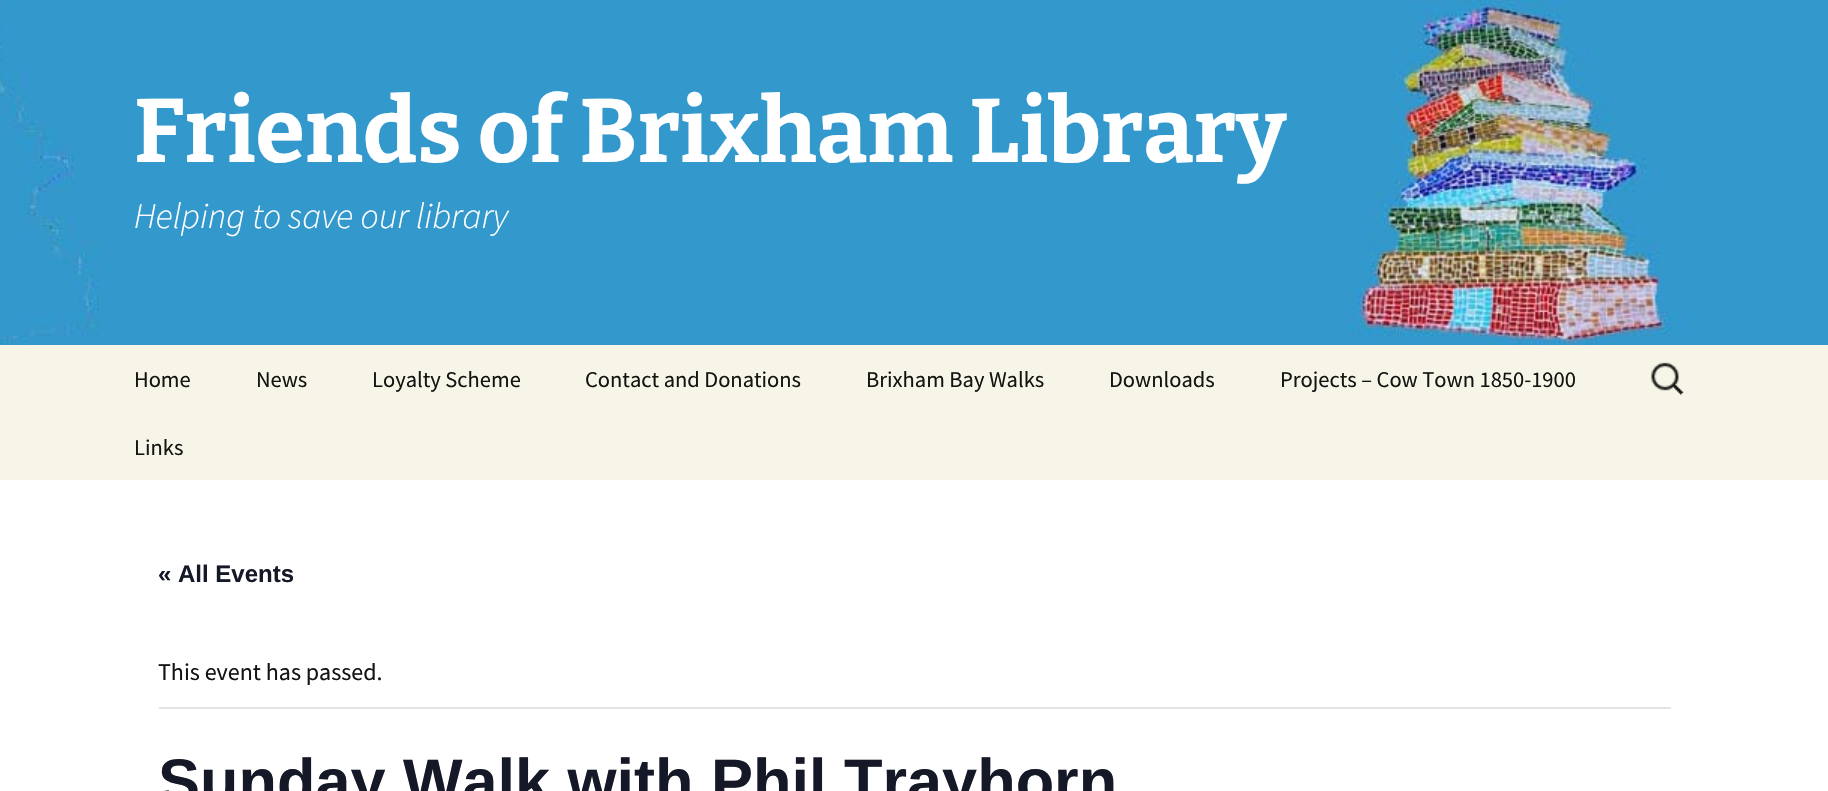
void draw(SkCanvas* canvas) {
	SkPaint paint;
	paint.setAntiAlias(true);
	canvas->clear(0xffffffff);
	canvas->drawImageRect(SkImages::DeferredFromEncodedData(SkData::MakeFromFileName("img1.png")), SkRect::MakeXYWH(0, 0, 1828, 345), SkSamplingOptions());
	SkFont f1(fontMgr->matchFamilyStyle("Bitter", SkFontStyle(100, SkFontStyle::kNormal_Width, SkFontStyle::kUpright_Slant)), 90);
	f1.setSubpixel(true);
	paint.setColor(0xffffffff);
	canvas->drawString("Friends of Brixham Library", 134, 162, f1, paint);
	SkFont f2(fontMgr->matchFamilyStyle("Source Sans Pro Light", SkFontStyle(300, SkFontStyle::kNormal_Width, SkFontStyle::kItalic_Slant)), 36);
	f2.setSubpixel(true);
	canvas->drawString("Helping to save our library", 134, 228, f2, paint);
	paint.setColor(0xfff7f5e7);
	canvas->drawRect(SkRect::MakeXYWH(0, 345, 1828, 135), paint);
	SkFont f3(fontMgr->matchFamilyStyle("Source Sans Pro", SkFontStyle::Normal()), 22.5);
	f3.setSubpixel(true);
	paint.setColor(0xff141412);
	canvas->drawString("Home", 134, 387, f3, paint);
	canvas->drawString("News", 256, 387, f3, paint);
	canvas->drawString("Loyalty Scheme", 372, 387, f3, paint);
	canvas->drawString("Contact and Donations", 585, 387, f3, paint);
	canvas->drawString("Brixham Bay Walks", 866, 387, f3, paint);
	canvas->drawString("Downloads", 1109, 387, f3, paint);
	canvas->drawString("Projects – Cow Town 1850-1900", 1280, 387, f3, paint);
	canvas->drawString("Links", 134, 455, f3, paint);
	canvas->drawImageRect(SkImages::DeferredFromEncodedData(SkData::MakeFromFileName("img2.png")), SkRect::MakeXYWH(1651, 362, 33, 33), SkSamplingOptions());
	SkFont f4(fontMgr->matchFamilyStyle("Liberation Sans", SkFontStyle::Bold()), 24);
	f4.setSubpixel(true);
	paint.setColor(0xff141827);
	canvas->drawString("« All Events", 158, 582, f4, paint);
	paint.setColor(0xffe4e4e4);
	canvas->drawRect(SkRect::MakeXYWH(159, 707, 1512, 2), paint);
	SkFont f5(fontMgr->matchFamilyStyle("Source Sans Pro", SkFontStyle::Normal()), 24);
	f5.setSubpixel(true);
	paint.setColor(0xff141412);
	canvas->drawString("This event has passed.", 158, 680, f5, paint);
	SkFont f6(fontMgr->matchFamilyStyle("Liberation Sans", SkFontStyle::Bold()), 63);
	f6.setSubpixel(true);
	paint.setColor(0xff141827);
	canvas->drawString("Sunday Walk with Phil Trayhorn", 158, 803, f6, paint);
}
